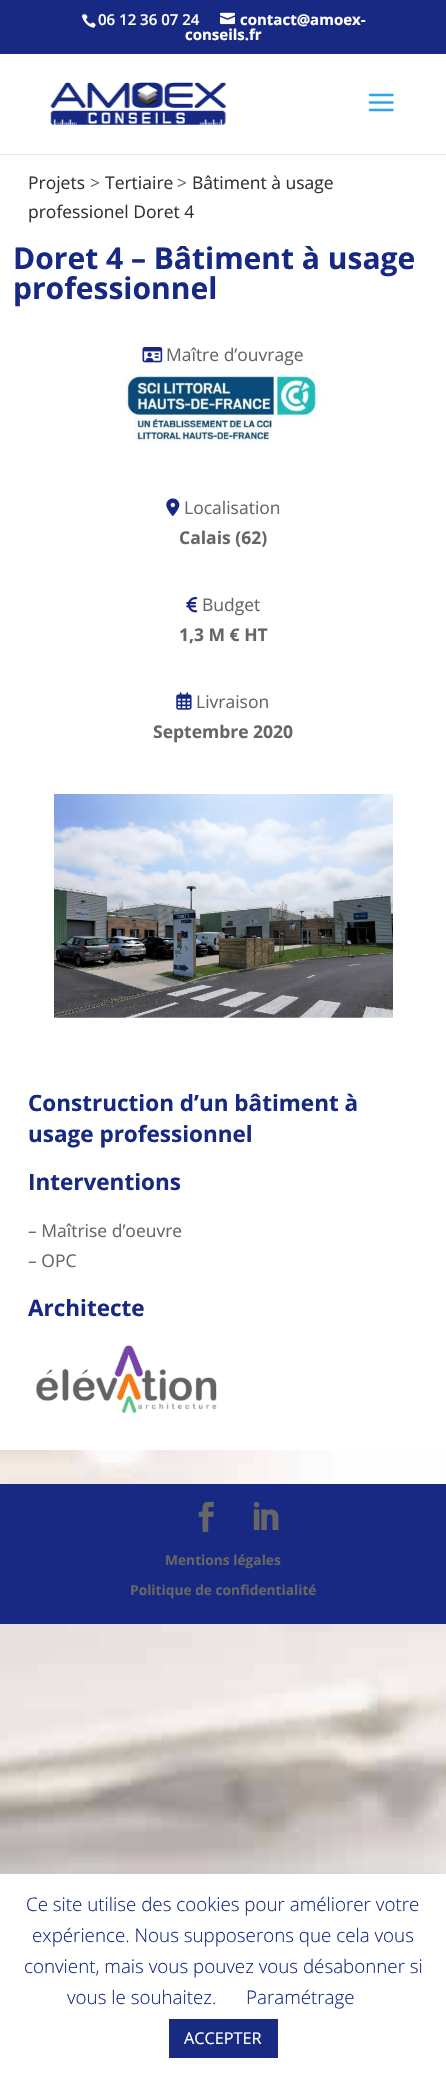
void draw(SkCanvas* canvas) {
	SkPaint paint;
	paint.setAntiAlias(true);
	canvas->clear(0xffffffff);
	canvas->drawImageRect(SkImages::DeferredFromEncodedData(SkData::MakeFromFileName("img1.png")), SkRect::MakeXYWH(0, 1450, 446, 424), SkSamplingOptions());
	paint.setColor(0xff182983);
	canvas->drawRect(SkRect::MakeXYWH(0, 0, 446, 54), paint);
	canvas->drawImageRect(SkImages::DeferredFromEncodedData(SkData::MakeFromFileName("img2.png")), SkRect::MakeXYWH(81, 14, 15, 14), SkSamplingOptions());
	SkFont f1(fontMgr->matchFamilyStyle("Open Sans", SkFontStyle(600, SkFontStyle::kNormal_Width, SkFontStyle::kUpright_Slant)), 15);
	f1.setSubpixel(true);
	paint.setColor(0xffffffff);
	canvas->drawString("06 12 36 07 24", 98, 25, f1, paint);
	canvas->drawImageRect(SkImages::DeferredFromEncodedData(SkData::MakeFromFileName("img3.png")), SkRect::MakeXYWH(220, 12, 15, 13), SkSamplingOptions());
	SkFont f2(fontMgr->matchFamilyStyle("Open Sans", SkFontStyle::Bold()), 15);
	f2.setSubpixel(true);
	canvas->drawString("contact@amoex-", 240, 25, f2, paint);
	canvas->drawString("conseils.fr", 185, 40, f2, paint);
	paint.setColor(0xffe6e6e6);
	canvas->drawRect(SkRect::MakeXYWH(0, 154, 446, 1), paint);
	canvas->drawImageRect(SkImages::DeferredFromEncodedData(SkData::MakeFromFileName("img4.png")), SkRect::MakeXYWH(50, 82, 176, 43), SkSamplingOptions());
	canvas->drawImageRect(SkImages::DeferredFromEncodedData(SkData::MakeFromFileName("img5.png")), SkRect::MakeXYWH(368, 93, 26, 19), SkSamplingOptions());
	SkFont f3(fontMgr->matchFamilyStyle("Open Sans", SkFontStyle::Normal()), 17.5);
	f3.setSubpixel(true);
	paint.setColor(0xff333333);
	canvas->drawString("Projets", 28, 189, f3, paint);
	paint.setColor(0xff666666);
	canvas->drawString(">", 90, 189, f3, paint);
	paint.setColor(0xff333333);
	canvas->drawString("Tertiaire", 105, 189, f3, paint);
	paint.setColor(0xff666666);
	canvas->drawString(">", 177, 189, f3, paint);
	paint.setColor(0xff333333);
	canvas->drawString("Bâtiment à usage", 192, 189, f3, paint);
	canvas->drawString("professionel Doret 4", 28, 218, f3, paint);
	SkFont f4(fontMgr->matchFamilyStyle("Open Sans", SkFontStyle::Bold()), 30);
	f4.setSubpixel(true);
	paint.setColor(0xff182983);
	canvas->drawString("Doret 4 – Bâtiment à usage", 13, 269, f4, paint);
	canvas->drawString("professionnel", 13, 299, f4, paint);
	canvas->drawImageRect(SkImages::DeferredFromEncodedData(SkData::MakeFromFileName("img6.png")), SkRect::MakeXYWH(142, 347, 21, 16), SkSamplingOptions());
	paint.setColor(0xff666666);
	canvas->drawString("Maître d’ouvrage", 166, 361, f3, paint);
	canvas->drawImageRect(SkImages::DeferredFromEncodedData(SkData::MakeFromFileName("img7.png")), SkRect::MakeXYWH(124, 369, 199, 74), SkSamplingOptions());
	canvas->drawImageRect(SkImages::DeferredFromEncodedData(SkData::MakeFromFileName("img8.png")), SkRect::MakeXYWH(166, 498, 14, 18), SkSamplingOptions());
	canvas->drawString("Localisation", 184, 514, f3, paint);
	SkFont f5(fontMgr->matchFamilyStyle("Open Sans", SkFontStyle::Bold()), 17.5);
	f5.setSubpixel(true);
	canvas->drawString("Calais (62)", 179, 544, f5, paint);
	canvas->drawImageRect(SkImages::DeferredFromEncodedData(SkData::MakeFromFileName("img9.png")), SkRect::MakeXYWH(186, 597, 12, 16), SkSamplingOptions());
	canvas->drawString("Budget", 202, 611, f3, paint);
	canvas->drawString("1,3 M € HT", 179, 641, f5, paint);
	canvas->drawImageRect(SkImages::DeferredFromEncodedData(SkData::MakeFromFileName("img10.png")), SkRect::MakeXYWH(176, 692, 16, 18), SkSamplingOptions());
	canvas->drawString("Livraison", 196, 708, f3, paint);
	canvas->drawString("Septembre 2020", 153, 738, f5, paint);
	canvas->drawImageRect(SkImages::DeferredFromEncodedData(SkData::MakeFromFileName("img11.png")), SkRect::MakeXYWH(54, 794, 339, 224), SkSamplingOptions());
	SkFont f6(fontMgr->matchFamilyStyle("Open Sans", SkFontStyle::Bold()), 22.5);
	f6.setSubpixel(true);
	paint.setColor(0xff182983);
	canvas->drawString("Construction d’un bâtiment à", 28, 1111, f6, paint);
	canvas->drawString("usage professionnel", 28, 1142, f6, paint);
	canvas->drawString("Interventions", 28, 1190, f6, paint);
	paint.setColor(0xff666666);
	canvas->drawString("– Maîtrise d’oeuvre", 28, 1237, f3, paint);
	canvas->drawString("– OPC", 28, 1267, f3, paint);
	paint.setColor(0xff182983);
	canvas->drawString("Architecte", 28, 1316, f6, paint);
	canvas->drawImageRect(SkImages::DeferredFromEncodedData(SkData::MakeFromFileName("img12.png")), SkRect::MakeXYWH(36, 1345, 181, 69), SkSamplingOptions());
	canvas->drawRect(SkRect::MakeXYWH(0, 1484, 446, 140), paint);
	canvas->drawImageRect(SkImages::DeferredFromEncodedData(SkData::MakeFromFileName("img13.png")), SkRect::MakeXYWH(198, 1501, 16, 31), SkSamplingOptions());
	canvas->drawImageRect(SkImages::DeferredFromEncodedData(SkData::MakeFromFileName("img14.png")), SkRect::MakeXYWH(253, 1501, 26, 29), SkSamplingOptions());
	SkFont f7(fontMgr->matchFamilyStyle("Open Sans", SkFontStyle::Bold()), 13.75);
	f7.setSubpixel(true);
	paint.setColor(0xff666666);
	canvas->drawString("Mentions légales", 165, 1565, f7, paint);
	canvas->drawString("Politique de confidentialité", 130, 1595, f7, paint);
	paint.setColor(0x4dacabab);
	paint.setMaskFilter(SkMaskFilter::MakeBlur(kNormal_SkBlurStyle, 6));
	canvas->drawRect(SkRect::MakeXYWH(0, 1873, 446, 205), paint);
	paint.setMaskFilter(nullptr);
	paint.setColor(0xffffffff);
	canvas->drawRect(SkRect::MakeXYWH(0, 1874, 446, 204), paint);
	SkFont f8(fontMgr->matchFamilyStyle("Open Sans", SkFontStyle(300, SkFontStyle::kNormal_Width, SkFontStyle::kUpright_Slant)), 18.75);
	f8.setSubpixel(true);
	paint.setColor(0xff182983);
	canvas->drawString("Ce site utilise des cookies pour améliorer votre", 26, 1911, f8, paint);
	canvas->drawString("expérience. Nous supposerons que cela vous", 32, 1942, f8, paint);
	canvas->drawString("convient, mais vous pouvez vous désabonner si", 24, 1973, f8, paint);
	canvas->drawString("vous le souhaitez.", 67, 2004, f8, paint);
	canvas->drawString("Paramétrage", 246, 2004, f8, paint);
	paint.setColor(0xff192a83);
	canvas->drawRect(SkRect::MakeXYWH(169, 2019, 109, 39), paint);
	SkFont f9(fontMgr->matchFamilyStyle("Open Sans", SkFontStyle::Normal()), 16.25);
	f9.setSubpixel(true);
	paint.setColor(0xffffffff);
	canvas->drawString("ACCEPTER", 184, 2044, f9, paint);
}
